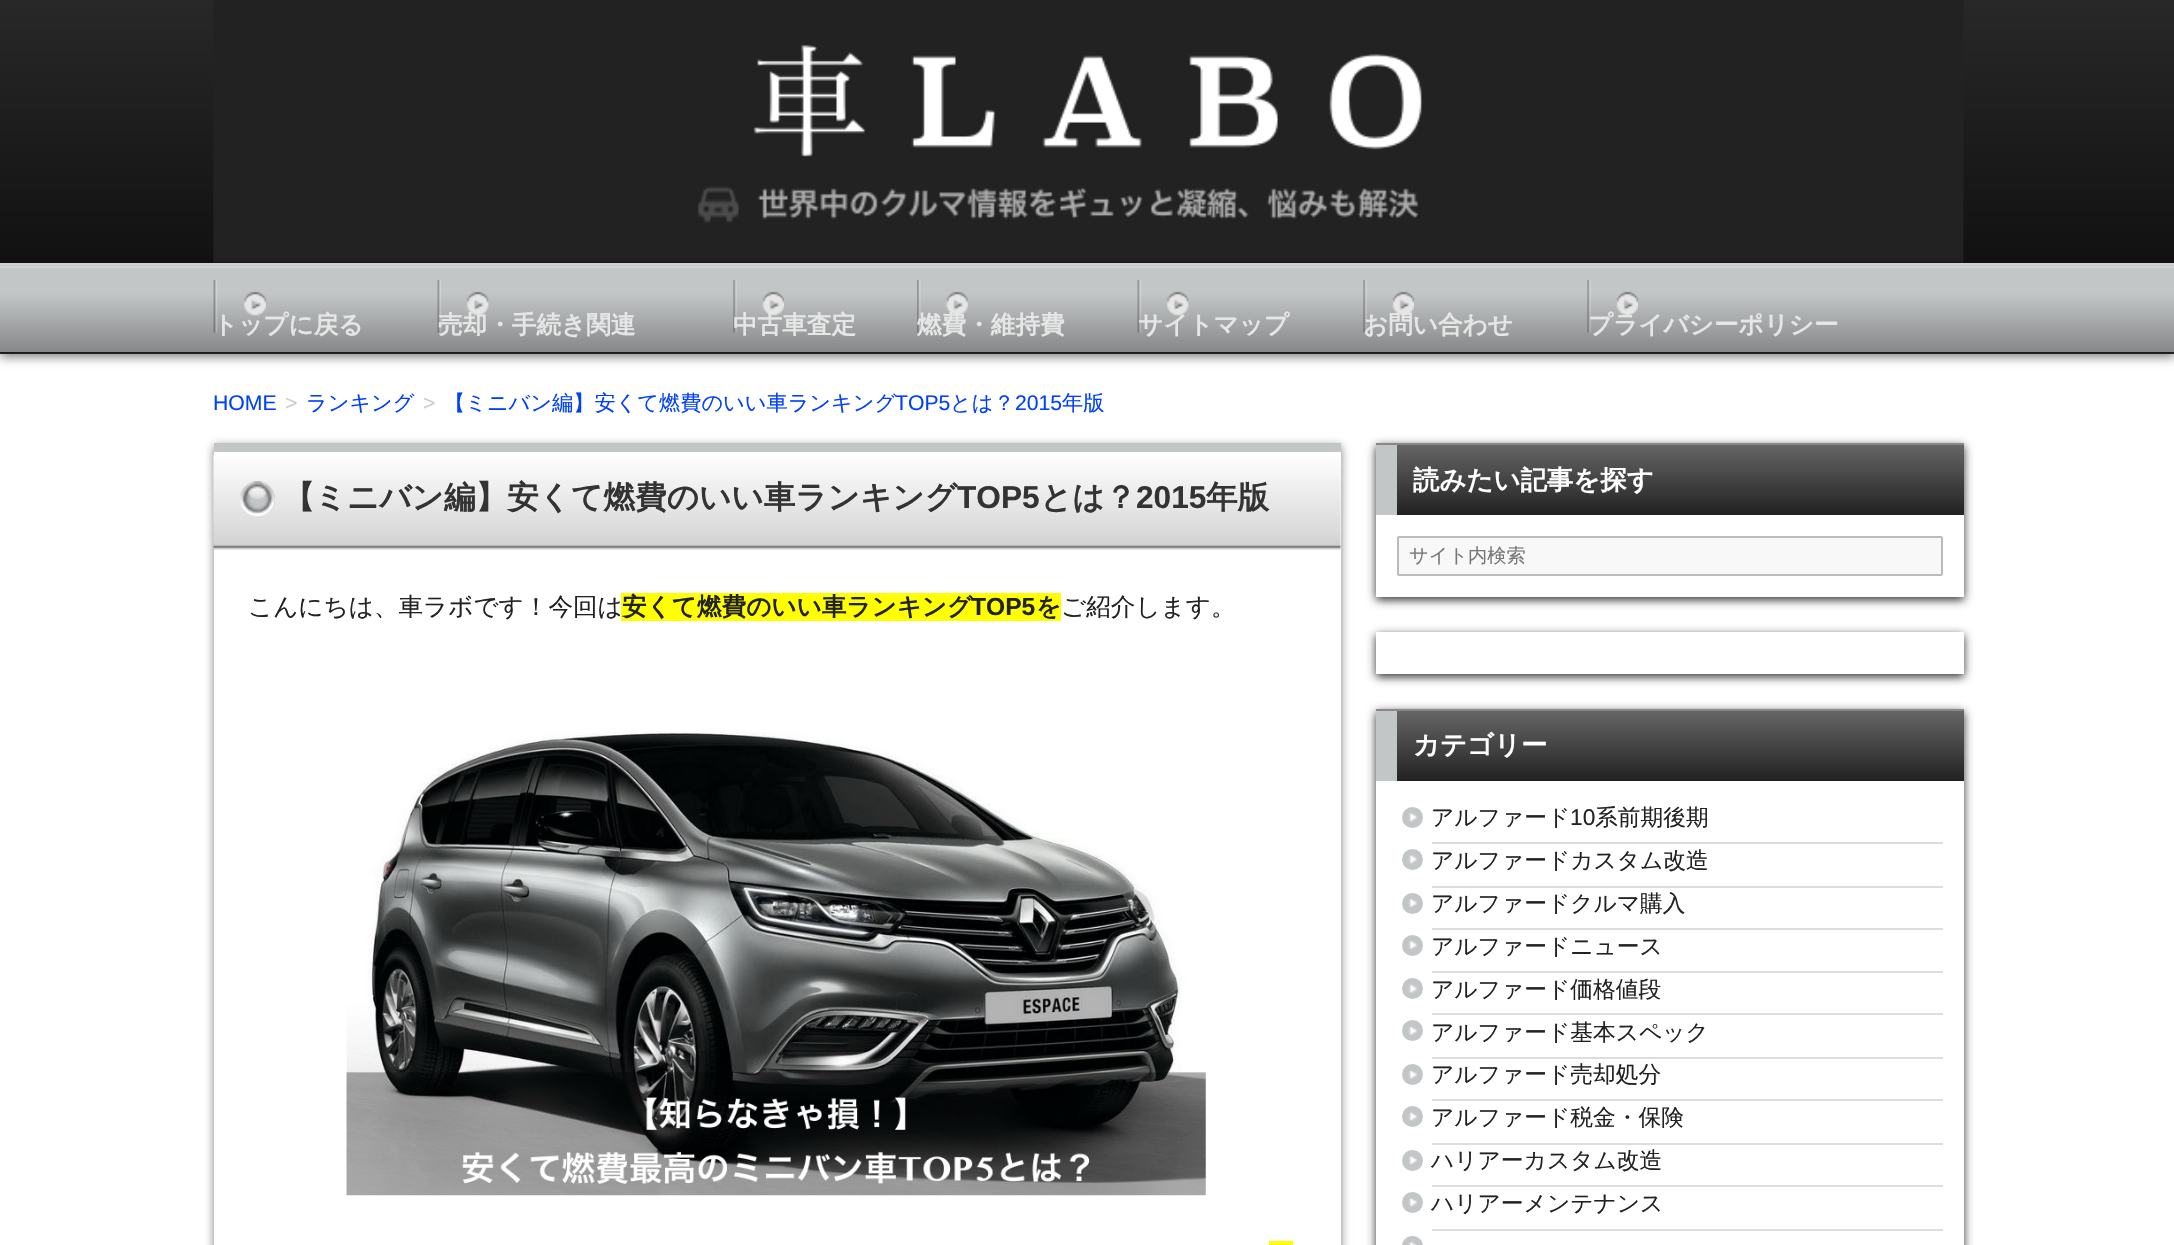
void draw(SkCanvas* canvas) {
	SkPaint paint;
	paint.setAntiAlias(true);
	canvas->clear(0xffffffff);
	{
		const SkColor colors[] = {0xff282828, 0xff111111};
		const float stops[] = {0, 1};
		const SkPoint ends[] = {{1088, 0}, {1088, 263}};
		paint.setShader(SkGradientShader::MakeLinear(ends, colors, stops, 2, SkTileMode::kClamp));
		paint.setAlpha(255);
	}
	canvas->drawRect(SkRect::MakeXYWH(0, 0, 2174, 263), paint);
	canvas->drawImageRect(SkImages::DeferredFromEncodedData(SkData::MakeFromFileName("img1.png")), SkRect::MakeXYWH(213, 0, 1751, 263), SkSamplingOptions());
	paint.setShader(nullptr);
	paint.setColor(0x80000000);
	paint.setMaskFilter(SkMaskFilter::MakeBlur(kNormal_SkBlurStyle, 5));
	canvas->drawRect(SkRect::MakeXYWH(0, 266, 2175, 91), paint);
	paint.setMaskFilter(nullptr);
	paint.setColor(0xffc3c6c7);
	canvas->drawRect(SkRect::MakeXYWH(0, 265, 2174, 89), paint);
	canvas->drawImageRect(SkImages::DeferredFromEncodedData(SkData::MakeFromFileName("img2.png")), SkRect::MakeXYWH(0, 266, 2174, 88), SkSamplingOptions());
	paint.setColor(0xcc000000);
	canvas->drawRect(SkRect::MakeXYWH(0, 352, 2174, 2), paint);
	paint.setColor(0xffcfd1d2);
	canvas->drawRect(SkRect::MakeXYWH(0, 263, 2174, 2), paint);
	canvas->drawImageRect(SkImages::DeferredFromEncodedData(SkData::MakeFromFileName("img3.png")), SkRect::MakeXYWH(213, 280, 53, 53), SkSamplingOptions());
	SkFont f1(fontMgr->matchFamilyStyle("WenQuanYi Zen Hei", SkFontStyle::Bold()), 24.6);
	f1.setSubpixel(true);
	paint.setColor(0xffe6e6e6);
	canvas->drawString("トップに戻る", 213, 333, f1, paint);
	canvas->drawImageRect(SkImages::DeferredFromEncodedData(SkData::MakeFromFileName("img4.png")), SkRect::MakeXYWH(437, 280, 52, 53), SkSamplingOptions());
	canvas->drawString("売却・手続き関連", 438, 333, f1, paint);
	canvas->drawImageRect(SkImages::DeferredFromEncodedData(SkData::MakeFromFileName("img5.png")), SkRect::MakeXYWH(733, 280, 51, 53), SkSamplingOptions());
	canvas->drawString("中古車査定", 733, 333, f1, paint);
	canvas->drawImageRect(SkImages::DeferredFromEncodedData(SkData::MakeFromFileName("img6.png")), SkRect::MakeXYWH(917, 280, 51, 53), SkSamplingOptions());
	canvas->drawString("燃費・維持費", 917, 333, f1, paint);
	canvas->drawImageRect(SkImages::DeferredFromEncodedData(SkData::MakeFromFileName("img7.png")), SkRect::MakeXYWH(1137, 280, 52, 53), SkSamplingOptions());
	canvas->drawString("サイトマップ", 1138, 333, f1, paint);
	canvas->drawImageRect(SkImages::DeferredFromEncodedData(SkData::MakeFromFileName("img8.png")), SkRect::MakeXYWH(1363, 280, 51, 53), SkSamplingOptions());
	canvas->drawString("お問い合わせ", 1363, 333, f1, paint);
	canvas->drawImageRect(SkImages::DeferredFromEncodedData(SkData::MakeFromFileName("img9.png")), SkRect::MakeXYWH(1587, 280, 51, 53), SkSamplingOptions());
	canvas->drawString("プライバシーポリシー", 1588, 333, f1, paint);
	SkFont f2(fontMgr->matchFamilyStyle("Liberation Sans", SkFontStyle::Normal()), 21.2);
	f2.setSubpixel(true);
	paint.setColor(0xff0040ff);
	canvas->drawString("HOME", 213, 410, f2, paint);
	paint.setColor(0xffcccccc);
	canvas->drawString(">", 285, 410, f2, paint);
	SkFont f3(fontMgr->matchFamilyStyle("WenQuanYi Zen Hei", SkFontStyle(500, SkFontStyle::kNormal_Width, SkFontStyle::kUpright_Slant)), 21.2);
	f3.setSubpixel(true);
	paint.setColor(0xff0040ff);
	canvas->drawString("ランキング", 306, 410, f3, paint);
	paint.setColor(0xffcccccc);
	canvas->drawString(">", 423, 410, f2, paint);
	paint.setColor(0xff0040ff);
	canvas->drawString("【ミニバン編】安くて燃費のいい車ランキング", 444, 410, f3, paint);
	canvas->drawString("TOP5", 895, 410, f2, paint);
	canvas->drawString("とは？", 950, 410, f3, paint);
	canvas->drawString("2015", 1015, 410, f2, paint);
	canvas->drawString("年版", 1062, 410, f3, paint);
	paint.setColor(0x80000000);
	paint.setMaskFilter(SkMaskFilter::MakeBlur(kNormal_SkBlurStyle, 4.5));
	canvas->drawRect(SkRect::MakeXYWH(214, 446, 1127, 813), paint);
	paint.setMaskFilter(nullptr);
	paint.setColor(0xffffffff);
	canvas->drawRect(SkRect::MakeXYWH(214, 452, 1127, 793), paint);
	canvas->drawImageRect(SkImages::DeferredFromEncodedData(SkData::MakeFromFileName("img10.png")), SkRect::MakeXYWH(213, 455, 1128, 95), SkSamplingOptions());
	paint.setColor(0xffc3c6c7);
	canvas->drawRect(SkRect::MakeXYWH(214, 443, 1127, 9), paint);
	canvas->drawCircle(257.5, 498.5, 17.5, paint);
	canvas->drawImageRect(SkImages::DeferredFromEncodedData(SkData::MakeFromFileName("img11.png")), SkRect::MakeXYWH(240, 481, 35, 36), SkSamplingOptions());
	SkFont f4(fontMgr->matchFamilyStyle("WenQuanYi Zen Hei", SkFontStyle::Bold()), 31.6);
	f4.setSubpixel(true);
	paint.setColor(0xff333333);
	canvas->drawString("【ミニバン編】安くて燃費のいい車ランキング", 283, 508, f4, paint);
	SkFont f5(fontMgr->matchFamilyStyle("Liberation Sans", SkFontStyle::Bold()), 31.6);
	f5.setSubpixel(true);
	canvas->drawString("TOP5", 957, 508, f5, paint);
	canvas->drawString("とは？", 1040, 508, f4, paint);
	canvas->drawString("2015", 1136, 508, f5, paint);
	canvas->drawString("年版", 1206, 508, f4, paint);
	SkFont f6(fontMgr->matchFamilyStyle("WenQuanYi Zen Hei", SkFontStyle(500, SkFontStyle::kNormal_Width, SkFontStyle::kUpright_Slant)), 24.6);
	f6.setSubpixel(true);
	paint.setColor(0xff222222);
	canvas->drawString("こんにちは、車ラボです！今回は", 248, 615, f6, paint);
	paint.setColor(0xffffff00);
	canvas->drawRect(SkRect::MakeXYWH(621, 593, 440, 28), paint);
	paint.setColor(0xff222222);
	canvas->drawString("安くて燃費のいい車ランキング", 622, 615, f1, paint);
	SkFont f7(fontMgr->matchFamilyStyle("Liberation Sans", SkFontStyle::Bold()), 24.6);
	f7.setSubpixel(true);
	canvas->drawString("TOP5", 971, 615, f7, paint);
	canvas->drawString("を", 1036, 615, f1, paint);
	canvas->drawString("ご紹介します。", 1061, 615, f6, paint);
	canvas->drawImageRect(SkImages::DeferredFromEncodedData(SkData::MakeFromFileName("img12.png")), SkRect::MakeXYWH(346, 731, 860, 465), SkSamplingOptions());
	paint.setColor(0xffffff00);
	canvas->drawRect(SkRect::MakeXYWH(1269, 1241, 24, 4), paint);
	paint.setColor(0xcc000000);
	paint.setMaskFilter(SkMaskFilter::MakeBlur(kNormal_SkBlurStyle, 4.5));
	canvas->drawRect(SkRect::MakeXYWH(1376, 446, 588, 154), paint);
	paint.setMaskFilter(nullptr);
	paint.setColor(0xffffffff);
	canvas->drawRect(SkRect::MakeXYWH(1376, 515, 588, 82), paint);
	{
		const SkColor colors[] = {0xff666666, 0xff222222};
		const float stops[] = {0, 1};
		const SkPoint ends[] = {{1670, 444}, {1670, 515}};
		paint.setShader(SkGradientShader::MakeLinear(ends, colors, stops, 2, SkTileMode::kClamp));
		paint.setAlpha(255);
	}
	canvas->drawRect(SkRect::MakeXYWH(1397, 445, 567, 70), paint);
	paint.setShader(nullptr);
	paint.setColor(0xff888888);
	canvas->drawRect(SkRect::MakeXYWH(1376, 443, 588, 2), paint);
	paint.setColor(0xffc3c6c7);
	canvas->drawRect(SkRect::MakeXYWH(1376, 445, 21, 70), paint);
	SkFont f8(fontMgr->matchFamilyStyle("WenQuanYi Zen Hei", SkFontStyle::Bold()), 26.4);
	f8.setSubpixel(true);
	paint.setColor(0xffffffff);
	canvas->drawString("読みたい記事を探す", 1413, 489, f8, paint);
	paint.setColor(0xfff8f8f8);
	canvas->drawRoundRect(SkRect::MakeXYWH(1398, 537, 544, 38), 1, 1, paint);
	paint.setStroke(true);
	paint.setStrokeWidth(2);
	paint.setColor(0xffbbbbbb);
	canvas->drawRoundRect(SkRect::MakeXYWH(1398, 537, 544, 38), 1, 1, paint);
	SkFont f9(fontMgr->matchFamilyStyle("WenQuanYi Zen Hei", SkFontStyle(500, SkFontStyle::kNormal_Width, SkFontStyle::kUpright_Slant)), 19.25);
	f9.setSubpixel(true);
	paint.setStroke(false);
	paint.setColor(0xff777777);
	canvas->drawString("サイト内検索", 1409, 562, f9, paint);
	paint.setColor(0xcc000000);
	paint.setMaskFilter(SkMaskFilter::MakeBlur(kNormal_SkBlurStyle, 4.5));
	canvas->drawRect(SkRect::MakeXYWH(1376, 635, 588, 42), paint);
	paint.setMaskFilter(nullptr);
	paint.setColor(0xffffffff);
	canvas->drawRect(SkRect::MakeXYWH(1376, 632, 588, 42), paint);
	paint.setColor(0xcc000000);
	paint.setMaskFilter(SkMaskFilter::MakeBlur(kNormal_SkBlurStyle, 4.5));
	canvas->drawRect(SkRect::MakeXYWH(1376, 712, 588, 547), paint);
	paint.setMaskFilter(nullptr);
	paint.setColor(0xffffffff);
	canvas->drawRect(SkRect::MakeXYWH(1376, 781, 588, 464), paint);
	{
		const SkColor colors[] = {0xff666666, 0xff222222};
		const float stops[] = {0, 1};
		const SkPoint ends[] = {{1670, 711}, {1670, 781}};
		paint.setShader(SkGradientShader::MakeLinear(ends, colors, stops, 2, SkTileMode::kClamp));
		paint.setAlpha(255);
	}
	canvas->drawRect(SkRect::MakeXYWH(1397, 711, 567, 70), paint);
	paint.setShader(nullptr);
	paint.setColor(0xff888888);
	canvas->drawRect(SkRect::MakeXYWH(1376, 709, 588, 2), paint);
	paint.setColor(0xffc3c6c7);
	canvas->drawRect(SkRect::MakeXYWH(1376, 711, 21, 70), paint);
	paint.setColor(0xffffffff);
	canvas->drawString("カテゴリー", 1413, 754, f8, paint);
	paint.setColor(0xffdddddd);
	canvas->drawRect(SkRect::MakeXYWH(1432, 842, 511, 2), paint);
	paint.setColor(0xffc3c6c7);
	canvas->drawCircle(1412.5, 817.5, 10.5, paint);
	canvas->drawImageRect(SkImages::DeferredFromEncodedData(SkData::MakeFromFileName("img13.png")), SkRect::MakeXYWH(1408, 813, 10, 9), SkSamplingOptions());
	SkFont f10(fontMgr->matchFamilyStyle("WenQuanYi Zen Hei", SkFontStyle(500, SkFontStyle::kNormal_Width, SkFontStyle::kUpright_Slant)), 22.75);
	f10.setSubpixel(true);
	paint.setColor(0xff222222);
	canvas->drawString("アルファード", 1431, 825, f10, paint);
	SkFont f11(fontMgr->matchFamilyStyle("Liberation Sans", SkFontStyle::Normal()), 22.75);
	f11.setSubpixel(true);
	canvas->drawString("10", 1570, 825, f11, paint);
	canvas->drawString("系前期後期", 1595, 825, f10, paint);
	paint.setColor(0xffdddddd);
	canvas->drawRect(SkRect::MakeXYWH(1432, 886, 511, 2), paint);
	paint.setColor(0xffc3c6c7);
	canvas->drawCircle(1412.5, 859.5, 10.5, paint);
	canvas->drawImageRect(SkImages::DeferredFromEncodedData(SkData::MakeFromFileName("img13.png")), SkRect::MakeXYWH(1408, 855, 10, 9), SkSamplingOptions());
	paint.setColor(0xff222222);
	canvas->drawString("アルファードカスタム改造", 1431, 868, f10, paint);
	paint.setColor(0xffdddddd);
	canvas->drawRect(SkRect::MakeXYWH(1432, 928, 511, 2), paint);
	paint.setColor(0xffc3c6c7);
	canvas->drawCircle(1412.5, 903.5, 10.5, paint);
	canvas->drawImageRect(SkImages::DeferredFromEncodedData(SkData::MakeFromFileName("img14.png")), SkRect::MakeXYWH(1408, 899, 10, 8), SkSamplingOptions());
	paint.setColor(0xff222222);
	canvas->drawString("アルファードクルマ購入", 1431, 911, f10, paint);
	paint.setColor(0xffdddddd);
	canvas->drawRect(SkRect::MakeXYWH(1432, 971, 511, 2), paint);
	paint.setColor(0xffc3c6c7);
	canvas->drawCircle(1412.5, 945.5, 10.5, paint);
	canvas->drawImageRect(SkImages::DeferredFromEncodedData(SkData::MakeFromFileName("img14.png")), SkRect::MakeXYWH(1408, 941, 10, 8), SkSamplingOptions());
	paint.setColor(0xff222222);
	canvas->drawString("アルファードニュース", 1431, 954, f10, paint);
	paint.setColor(0xffdddddd);
	canvas->drawRect(SkRect::MakeXYWH(1432, 1013, 511, 2), paint);
	paint.setColor(0xffc3c6c7);
	canvas->drawCircle(1412.5, 988.5, 10.5, paint);
	canvas->drawImageRect(SkImages::DeferredFromEncodedData(SkData::MakeFromFileName("img15.png")), SkRect::MakeXYWH(1408, 984, 10, 9), SkSamplingOptions());
	paint.setColor(0xff222222);
	canvas->drawString("アルファード価格値段", 1431, 997, f10, paint);
	paint.setColor(0xffdddddd);
	canvas->drawRect(SkRect::MakeXYWH(1432, 1057, 511, 2), paint);
	paint.setColor(0xffc3c6c7);
	canvas->drawCircle(1412.5, 1030.5, 10.5, paint);
	canvas->drawImageRect(SkImages::DeferredFromEncodedData(SkData::MakeFromFileName("img15.png")), SkRect::MakeXYWH(1408, 1026, 10, 9), SkSamplingOptions());
	paint.setColor(0xff222222);
	canvas->drawString("アルファード基本スペック", 1431, 1040, f10, paint);
	paint.setColor(0xffdddddd);
	canvas->drawRect(SkRect::MakeXYWH(1432, 1099, 511, 2), paint);
	paint.setColor(0xffc3c6c7);
	canvas->drawCircle(1412.5, 1074.5, 10.5, paint);
	canvas->drawImageRect(SkImages::DeferredFromEncodedData(SkData::MakeFromFileName("img16.png")), SkRect::MakeXYWH(1408, 1070, 10, 9), SkSamplingOptions());
	paint.setColor(0xff222222);
	canvas->drawString("アルファード売却処分", 1431, 1082, f10, paint);
	paint.setColor(0xffdddddd);
	canvas->drawRect(SkRect::MakeXYWH(1432, 1143, 511, 2), paint);
	paint.setColor(0xffc3c6c7);
	canvas->drawCircle(1412.5, 1116.5, 10.5, paint);
	canvas->drawImageRect(SkImages::DeferredFromEncodedData(SkData::MakeFromFileName("img16.png")), SkRect::MakeXYWH(1408, 1112, 10, 9), SkSamplingOptions());
	paint.setColor(0xff222222);
	canvas->drawString("アルファード税金・保険", 1431, 1125, f10, paint);
	paint.setColor(0xffdddddd);
	canvas->drawRect(SkRect::MakeXYWH(1432, 1185, 511, 2), paint);
	paint.setColor(0xffc3c6c7);
	canvas->drawCircle(1412.5, 1160.5, 10.5, paint);
	canvas->drawImageRect(SkImages::DeferredFromEncodedData(SkData::MakeFromFileName("img13.png")), SkRect::MakeXYWH(1408, 1156, 10, 9), SkSamplingOptions());
	paint.setColor(0xff222222);
	canvas->drawString("ハリアーカスタム改造", 1431, 1168, f10, paint);
	paint.setColor(0xffdddddd);
	canvas->drawRect(SkRect::MakeXYWH(1432, 1229, 511, 2), paint);
	paint.setColor(0xffc3c6c7);
	canvas->drawCircle(1412.5, 1202.5, 10.5, paint);
	canvas->drawImageRect(SkImages::DeferredFromEncodedData(SkData::MakeFromFileName("img13.png")), SkRect::MakeXYWH(1408, 1198, 10, 9), SkSamplingOptions());
	paint.setColor(0xff222222);
	canvas->drawString("ハリアーメンテナンス", 1431, 1211, f10, paint);
	paint.setColor(0xffc3c6c7);
	canvas->drawRoundRect(SkRect::MakeXYWH(1402, 1236, 21, 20), 10.5, 10.5, paint);
	canvas->drawImageRect(SkImages::DeferredFromEncodedData(SkData::MakeFromFileName("img17.png")), SkRect::MakeXYWH(1408, 1242, 9, 3), SkSamplingOptions());
}
